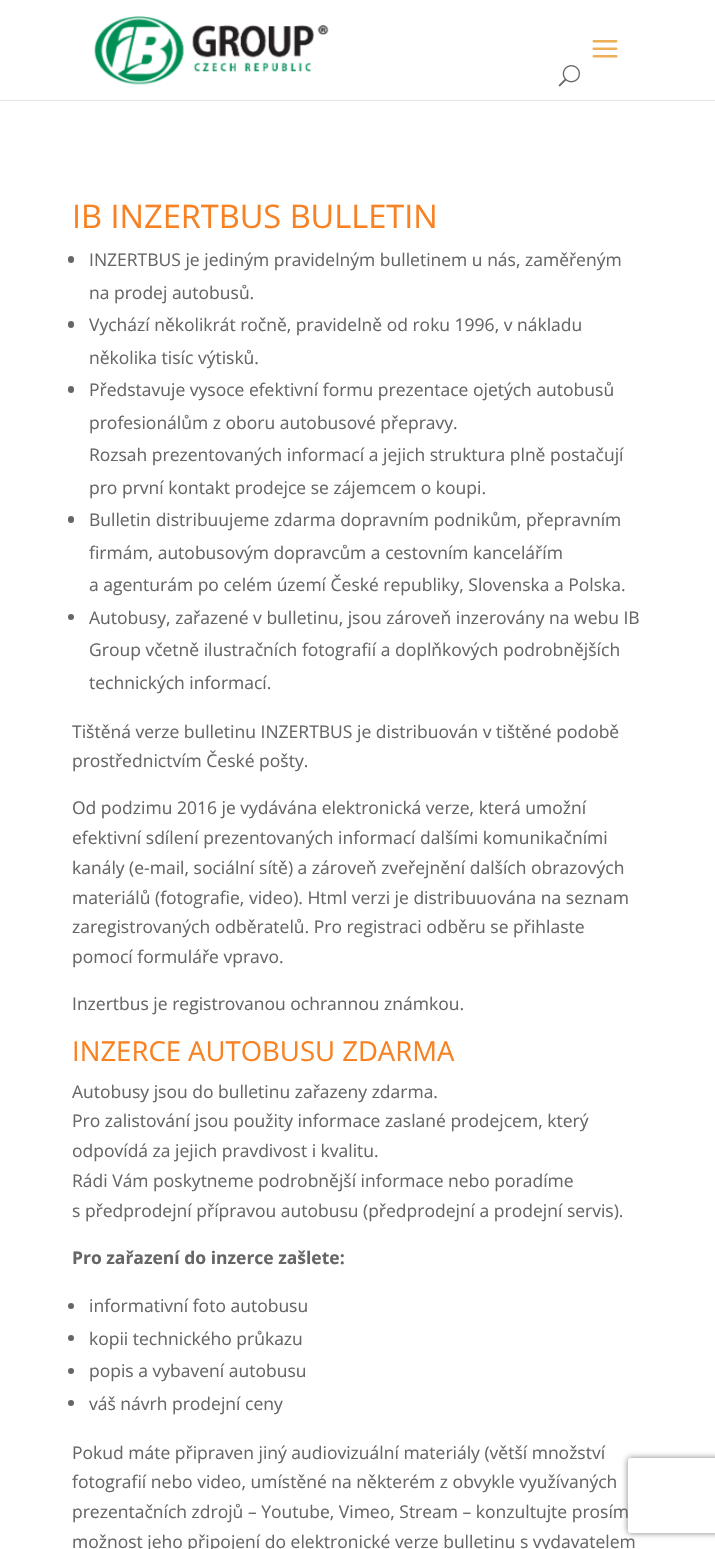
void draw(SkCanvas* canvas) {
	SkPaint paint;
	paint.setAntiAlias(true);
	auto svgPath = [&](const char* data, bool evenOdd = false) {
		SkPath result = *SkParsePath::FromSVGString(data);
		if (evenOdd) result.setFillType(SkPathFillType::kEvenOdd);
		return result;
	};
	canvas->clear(0xffffffff);
	paint.setColor(0xffe6e6e6);
	canvas->drawRect(SkRect::MakeXYWH(0, 100, 715, 1), paint);
	canvas->drawImageRect(SkImages::DeferredFromEncodedData(SkData::MakeFromFileName("img1.png")), SkRect::MakeXYWH(94, 16, 235, 69), SkSamplingOptions());
	canvas->drawImageRect(SkImages::DeferredFromEncodedData(SkData::MakeFromFileName("img2.png")), SkRect::MakeXYWH(592, 40, 26, 18), SkSamplingOptions());
	canvas->drawImageRect(SkImages::DeferredFromEncodedData(SkData::MakeFromFileName("img3.png")), SkRect::MakeXYWH(558, 65, 22, 22), SkSamplingOptions());
	SkFont f1(fontMgr->matchFamilyStyle("Open Sans", SkFontStyle::Normal()), 32.5);
	f1.setSubpixel(true);
	paint.setColor(0xfff78223);
	canvas->drawString("IB INZERTBUS BULLETIN", 72, 228, f1, paint);
	paint.setColor(0xff666666);
	canvas->drawRoundRect(SkRect::MakeXYWH(68, 256, 6, 7), 3, 3, paint);
	SkFont f2(fontMgr->matchFamilyStyle("Open Sans", SkFontStyle::Normal()), 17.5);
	f2.setSubpixel(true);
	canvas->drawString("INZERTBUS je jediným pravidelným bulletinem u nás, zaměřeným", 89, 266, f2, paint);
	canvas->drawString("na prodej autobusů.", 89, 299, f2, paint);
	canvas->drawRoundRect(SkRect::MakeXYWH(68, 321, 6, 7), 3, 3, paint);
	canvas->drawString("Vychází několikrát ročně, pravidelně od roku 1996, v nákladu", 89, 331, f2, paint);
	canvas->drawString("několika tisíc výtisků.", 89, 364, f2, paint);
	canvas->drawRoundRect(SkRect::MakeXYWH(68, 386, 6, 7), 3, 3, paint);
	canvas->drawString("Představuje vysoce efektivní formu prezentace ojetých autobusů", 89, 396, f2, paint);
	canvas->drawString("profesionálům z oboru autobusové přepravy.", 89, 429, f2, paint);
	canvas->drawString("Rozsah prezentovaných informací a jejich struktura plně postačují", 89, 461, f2, paint);
	canvas->drawString("pro první kontakt prodejce se zájemcem o koupi.", 89, 494, f2, paint);
	canvas->drawRoundRect(SkRect::MakeXYWH(68, 516, 6, 7), 3, 3, paint);
	canvas->drawString("Bulletin distribuujeme zdarma dopravním podnikům, přepravním", 89, 526, f2, paint);
	canvas->drawString("firmám, autobusovým dopravcům a cestovním kancelářím", 89, 559, f2, paint);
	canvas->drawString("a agenturám po celém území České republiky, Slovenska a Polska.", 89, 591, f2, paint);
	canvas->drawCircle(71, 617, 3, paint);
	canvas->drawString("Autobusy, zařazené v bulletinu, jsou zároveň inzerovány na webu IB", 89, 624, f2, paint);
	canvas->drawString("Group včetně ilustračních fotografií a doplňkových podrobnějších", 89, 656, f2, paint);
	canvas->drawString("technických informací.", 89, 689, f2, paint);
	canvas->drawString("Tištěná verze bulletinu INZERTBUS je distribuován v tištěné podobě", 72, 738, f2, paint);
	canvas->drawString("prostřednictvím České pošty.", 72, 767, f2, paint);
	canvas->drawString("Od podzimu 2016 je vydávána elektronická verze, která umožní", 72, 814, f2, paint);
	canvas->drawString("efektivní sdílení prezentovaných informací dalšími komunikačními", 72, 844, f2, paint);
	canvas->drawString("kanály (e-mail, sociální sítě) a zároveň zveřejnění dalších obrazových", 72, 874, f2, paint);
	canvas->drawString("materiálů (fotografie, video). Html verzi je distribuuována na seznam", 72, 904, f2, paint);
	canvas->drawString("zaregistrovaných odběratelů. Pro registraci odběru se přihlaste", 72, 933, f2, paint);
	canvas->drawString("pomocí formuláře vpravo.", 72, 963, f2, paint);
	canvas->drawString("Inzertbus je registrovanou ochrannou známkou.", 72, 1010, f2, paint);
	SkFont f3(fontMgr->matchFamilyStyle("Open Sans", SkFontStyle::Normal()), 27.5);
	f3.setSubpixel(true);
	paint.setColor(0xfff78223);
	canvas->drawString("INZERCE AUTOBUSU ZDARMA", 72, 1061, f3, paint);
	paint.setColor(0xff666666);
	canvas->drawString("Autobusy jsou do bulletinu zařazeny zdarma.", 72, 1098, f2, paint);
	canvas->drawString("Pro zalistování jsou použity informace zaslané prodejcem, který", 72, 1127, f2, paint);
	canvas->drawString("odpovídá za jejich pravdivost i kvalitu.", 72, 1157, f2, paint);
	canvas->drawString("Rádi Vám poskytneme podrobnější informace nebo poradíme", 72, 1187, f2, paint);
	canvas->drawString("s předprodejní přípravou autobusu (předprodejní a prodejní servis).", 72, 1217, f2, paint);
	SkFont f4(fontMgr->matchFamilyStyle("Open Sans", SkFontStyle::Bold()), 17.5);
	f4.setSubpixel(true);
	canvas->drawString("Pro zařazení do inzerce zašlete:", 72, 1264, f4, paint);
	canvas->drawCircle(71, 1306, 3, paint);
	canvas->drawString("informativní foto autobusu", 89, 1312, f2, paint);
	canvas->drawCircle(71, 1338, 3, paint);
	canvas->drawString("kopii technického průkazu", 89, 1345, f2, paint);
	canvas->drawCircle(71, 1371, 3, paint);
	canvas->drawString("popis a vybavení autobusu", 89, 1377, f2, paint);
	canvas->drawCircle(71, 1403, 3, paint);
	canvas->drawString("váš návrh prodejní ceny", 89, 1410, f2, paint);
	canvas->drawString("Pokud máte připraven jiný audiovizuální materiály (větší množství", 72, 1459, f2, paint);
	canvas->drawString("fotografií nebo video, umístěné na některém z obvykle využívaných", 72, 1488, f2, paint);
	canvas->save();
	canvas->clipPath(svgPath("M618 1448H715V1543H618ZM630.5 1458H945.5C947 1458 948 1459 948 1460.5V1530.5C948 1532 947 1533 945.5 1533H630.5C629 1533 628 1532 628 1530.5V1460.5C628 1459 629 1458 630.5 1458Z", true), true);
	paint.setColor(0xff808080);
	paint.setMaskFilter(SkMaskFilter::MakeBlur(kNormal_SkBlurStyle, 3));
	canvas->drawRoundRect(SkRect::MakeXYWH(628, 1458, 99, 75), 2.5, 2.5, paint);
	paint.setMaskFilter(nullptr);
	canvas->restore();
	paint.setColor(0xff666666);
	canvas->drawString("prezentačních zdrojů – Youtube, Vimeo, Stream – konzultujte prosím", 72, 1518, f2, paint);
	canvas->drawString("možnost jeho připojení do elektronické verze bulletinu s vydavatelem", 72, 1548, f2, paint);
}
